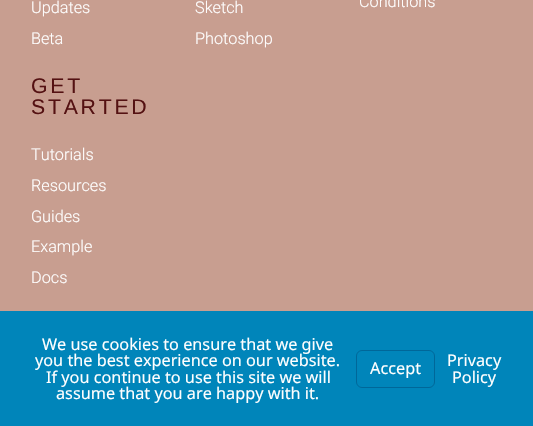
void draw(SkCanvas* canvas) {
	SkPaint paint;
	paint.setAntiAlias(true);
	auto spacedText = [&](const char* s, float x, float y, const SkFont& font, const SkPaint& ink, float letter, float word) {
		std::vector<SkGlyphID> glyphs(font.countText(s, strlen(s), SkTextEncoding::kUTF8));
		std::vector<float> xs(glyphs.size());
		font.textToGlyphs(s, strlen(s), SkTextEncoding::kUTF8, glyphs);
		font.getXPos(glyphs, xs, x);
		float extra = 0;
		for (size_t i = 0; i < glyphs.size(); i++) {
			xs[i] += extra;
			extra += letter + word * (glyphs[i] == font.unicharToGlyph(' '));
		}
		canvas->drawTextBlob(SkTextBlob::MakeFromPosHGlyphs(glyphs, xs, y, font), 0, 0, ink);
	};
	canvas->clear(0xffc89e90);
	SkFont f1(fontMgr->matchFamilyStyle("Roboto", SkFontStyle(300, SkFontStyle::kNormal_Width, SkFontStyle::kUpright_Slant)), 16.25);
	f1.setSubpixel(true);
	paint.setColor(0xffffffff);
	canvas->drawString("Updates", 31, 13, f1, paint);
	canvas->drawString("Beta", 31, 44, f1, paint);
	canvas->drawString("Sketch", 195, 13, f1, paint);
	canvas->drawString("Photoshop", 195, 44, f1, paint);
	canvas->drawString("Conditions", 359, 7, f1, paint);
	SkFont f2(fontMgr->matchFamilyStyle("Liberation Sans", SkFontStyle::Normal()), 21.25);
	f2.setSubpixel(true);
	paint.setColor(0xff541112);
	spacedText("GET", 31, 93, f2, paint, 2.75, 0);
	spacedText("STARTED", 31, 114, f2, paint, 2.75, 0);
	paint.setColor(0xffffffff);
	canvas->drawString("Tutorials", 31, 160, f1, paint);
	canvas->drawString("Resources", 31, 191, f1, paint);
	canvas->drawString("Guides", 31, 222, f1, paint);
	canvas->drawString("Example", 31, 252, f1, paint);
	canvas->drawString("Docs", 31, 283, f1, paint);
	paint.setColor(0xff0085ba);
	canvas->drawRect(SkRect::MakeXYWH(0, 311, 533, 115), paint);
	SkFont f3(fontMgr->matchFamilyStyle("Noto Sans", SkFontStyle::Normal()), 16.25);
	f3.setSubpixel(true);
	paint.setColor(0xffffffff);
	canvas->drawString("We use cookies to ensure that we give", 42, 350, f3, paint);
	canvas->drawString("you the best experience on our website.", 35, 366, f3, paint);
	canvas->drawString("If you continue to use this site we will", 46, 383, f3, paint);
	canvas->drawString("assume that you are happy with it.", 56, 399, f3, paint);
	paint.setStroke(true);
	paint.setStrokeWidth(1);
	paint.setColor(0xff006799);
	canvas->drawRoundRect(SkRect::MakeXYWH(356.5, 350.5, 78, 37), 5.5, 5.5, paint);
	paint.setStroke(false);
	paint.setColor(0xffffffff);
	canvas->drawString("Accept", 370, 374, f3, paint);
	canvas->drawString("Privacy", 447, 366, f3, paint);
	canvas->drawString("Policy", 452, 383, f3, paint);
}
